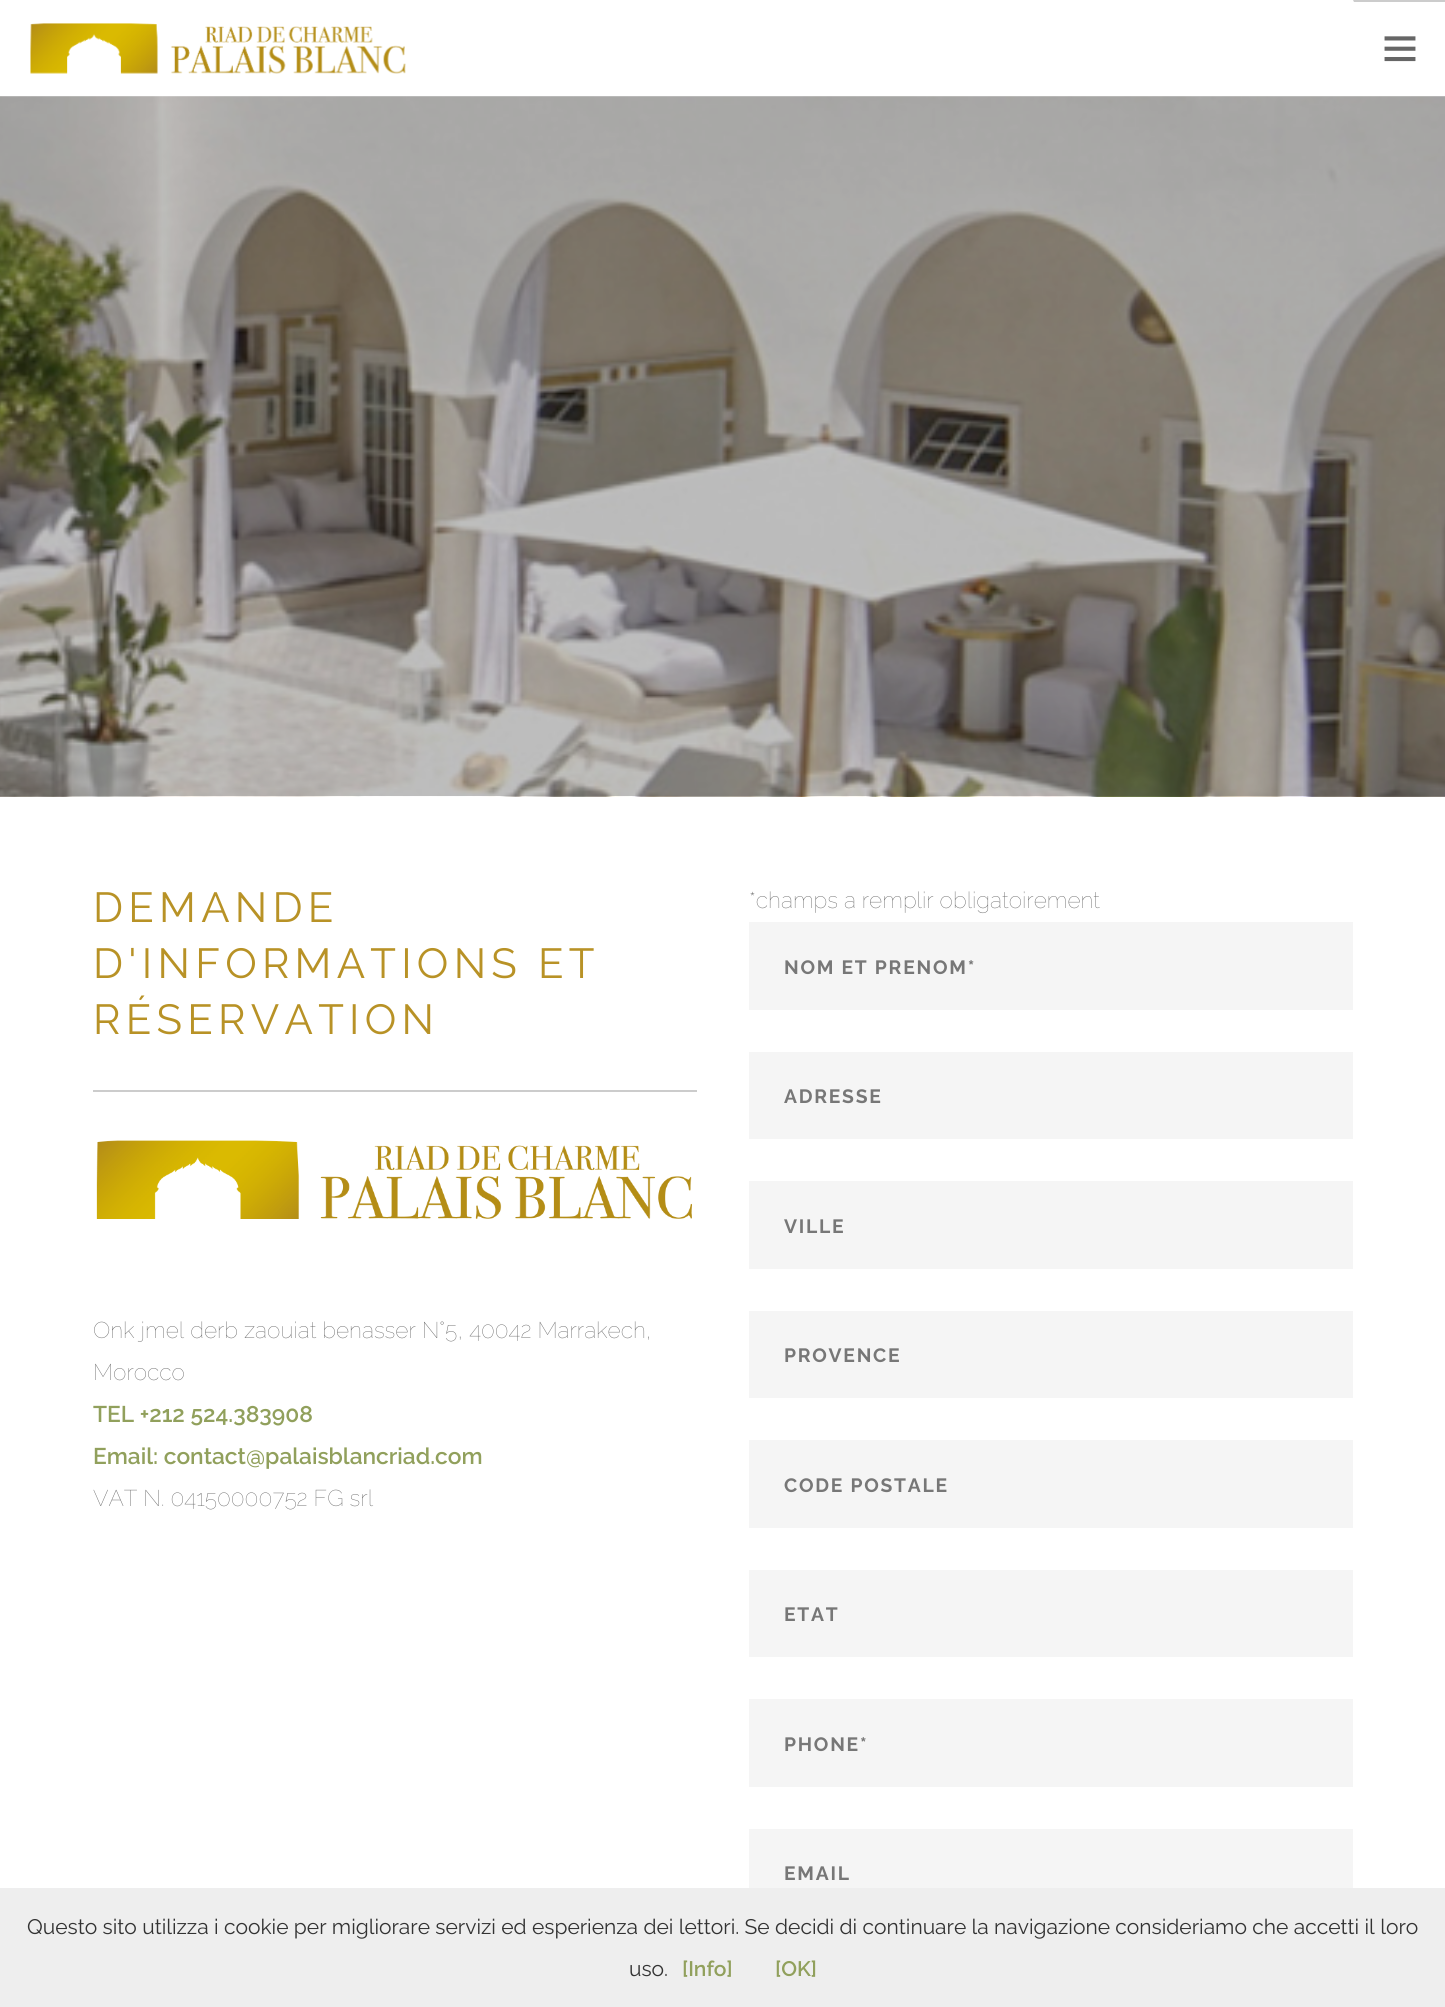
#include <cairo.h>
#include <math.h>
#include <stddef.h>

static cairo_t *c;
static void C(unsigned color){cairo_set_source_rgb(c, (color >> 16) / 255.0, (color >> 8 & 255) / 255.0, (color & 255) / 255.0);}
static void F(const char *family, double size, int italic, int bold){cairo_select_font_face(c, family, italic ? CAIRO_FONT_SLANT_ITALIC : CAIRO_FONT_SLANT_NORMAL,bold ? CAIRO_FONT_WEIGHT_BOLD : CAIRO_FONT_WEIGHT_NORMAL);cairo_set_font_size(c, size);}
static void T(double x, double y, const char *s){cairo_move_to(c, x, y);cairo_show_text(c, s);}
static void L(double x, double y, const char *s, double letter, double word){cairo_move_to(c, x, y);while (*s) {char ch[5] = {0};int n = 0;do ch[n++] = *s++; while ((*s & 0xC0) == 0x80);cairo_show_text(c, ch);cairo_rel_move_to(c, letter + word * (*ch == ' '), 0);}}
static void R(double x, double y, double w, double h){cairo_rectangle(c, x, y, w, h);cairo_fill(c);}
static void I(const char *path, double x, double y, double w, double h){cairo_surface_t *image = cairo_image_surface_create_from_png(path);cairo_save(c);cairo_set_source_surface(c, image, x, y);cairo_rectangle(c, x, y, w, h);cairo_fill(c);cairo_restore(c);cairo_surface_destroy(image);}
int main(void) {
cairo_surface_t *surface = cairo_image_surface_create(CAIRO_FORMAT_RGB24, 1445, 2007);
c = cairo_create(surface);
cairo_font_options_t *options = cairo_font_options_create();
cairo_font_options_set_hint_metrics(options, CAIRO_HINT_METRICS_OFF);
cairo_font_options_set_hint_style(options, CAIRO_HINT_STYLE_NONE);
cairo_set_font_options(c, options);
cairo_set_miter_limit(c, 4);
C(0xffffff);
cairo_paint(c);
I("3.png",0,96,1445,701);
cairo_set_source_rgba(c,1,1,1,0.2);
R(0,96,1445,1);
I("1.png",30,23,376,51);
C(0xcccccc);
cairo_new_path(c);
cairo_move_to(c,1353,0);
cairo_line_to(c,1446,0);
cairo_line_to(c,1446,2);
cairo_line_to(c,1354,2);
cairo_close_path(c);
cairo_fill(c);
I("2.png",1384,36,32,26);
F("Raleway",42,0,0);
C(0xb89226);
L(93,922,"DEMANDE",5.25,0);
L(93,978,"D'INFORMATIONS ET",5.25,0);
L(93,1034,"RÉSERVATION",5.25,0);
C(0xcccccc);
R(93,1090,604,2);
I("4.png",96,1140,596,79);
F("Raleway Thin",22.75,0,0);
C(0x666666);
T(93,1338,"Onk jmel derb zaouiat benasser N°5, 40042 Marrakech,");
T(93,1380,"Morocco");
F("Raleway SemiBold",22.75,0,0);
C(0x91a05c);
T(93,1422,"TEL +212 524.383908");
T(93,1464,"Email: contact@palaisblancriad.com");
F("Raleway Thin",22.75,0,0);
C(0x666666);
T(93,1506,"VAT N. 04150000752 FG srl");
T(749,908,"*champs a remplir obligatoirement");
C(0xf5f5f5);
R(749,922,604,88);
F("Raleway",19.25,0,1);
C(0x777777);
L(784,974,"NOM ET PRENOM*",1.75,0);
C(0xf5f5f5);
R(749,1052,604,87);
C(0x777777);
L(784,1103,"ADRESSE",1.75,0);
C(0xf5f5f5);
R(749,1181,604,88);
C(0x777777);
L(784,1233,"VILLE",1.75,0);
C(0xf5f5f5);
R(749,1311,604,87);
C(0x777777);
L(784,1362,"PROVENCE",1.75,0);
C(0xf5f5f5);
R(749,1440,604,88);
C(0x777777);
L(784,1492,"CODE POSTALE",1.75,0);
C(0xf5f5f5);
R(749,1570,604,87);
C(0x777777);
L(784,1621,"ETAT",1.75,0);
C(0xf5f5f5);
R(749,1699,604,88);
C(0x777777);
L(784,1751,"PHONE*",1.75,0);
C(0xf5f5f5);
R(749,1829,604,59);
C(0x777777);
L(784,1880,"EMAIL",1.75,0);
C(0xeeeeee);
R(0,1888,1445,119);
F("Raleway",21,0,0);
C(0x333333);
T(27,1934,"Questo sito utilizza i cookie per migliorare servizi ed esperienza dei lettori. Se decidi di continuare la navigazione consideriamo che accetti il loro");
T(629,1976,"uso.");
F("Raleway SemiBold",21,0,0);
C(0x91a05c);
T(682,1976,"[Info]");
T(775,1976,"[OK]");
cairo_surface_write_to_png(surface, "o.png");
cairo_font_options_destroy(options);
cairo_destroy(c);
cairo_surface_destroy(surface);
return 0;
}
